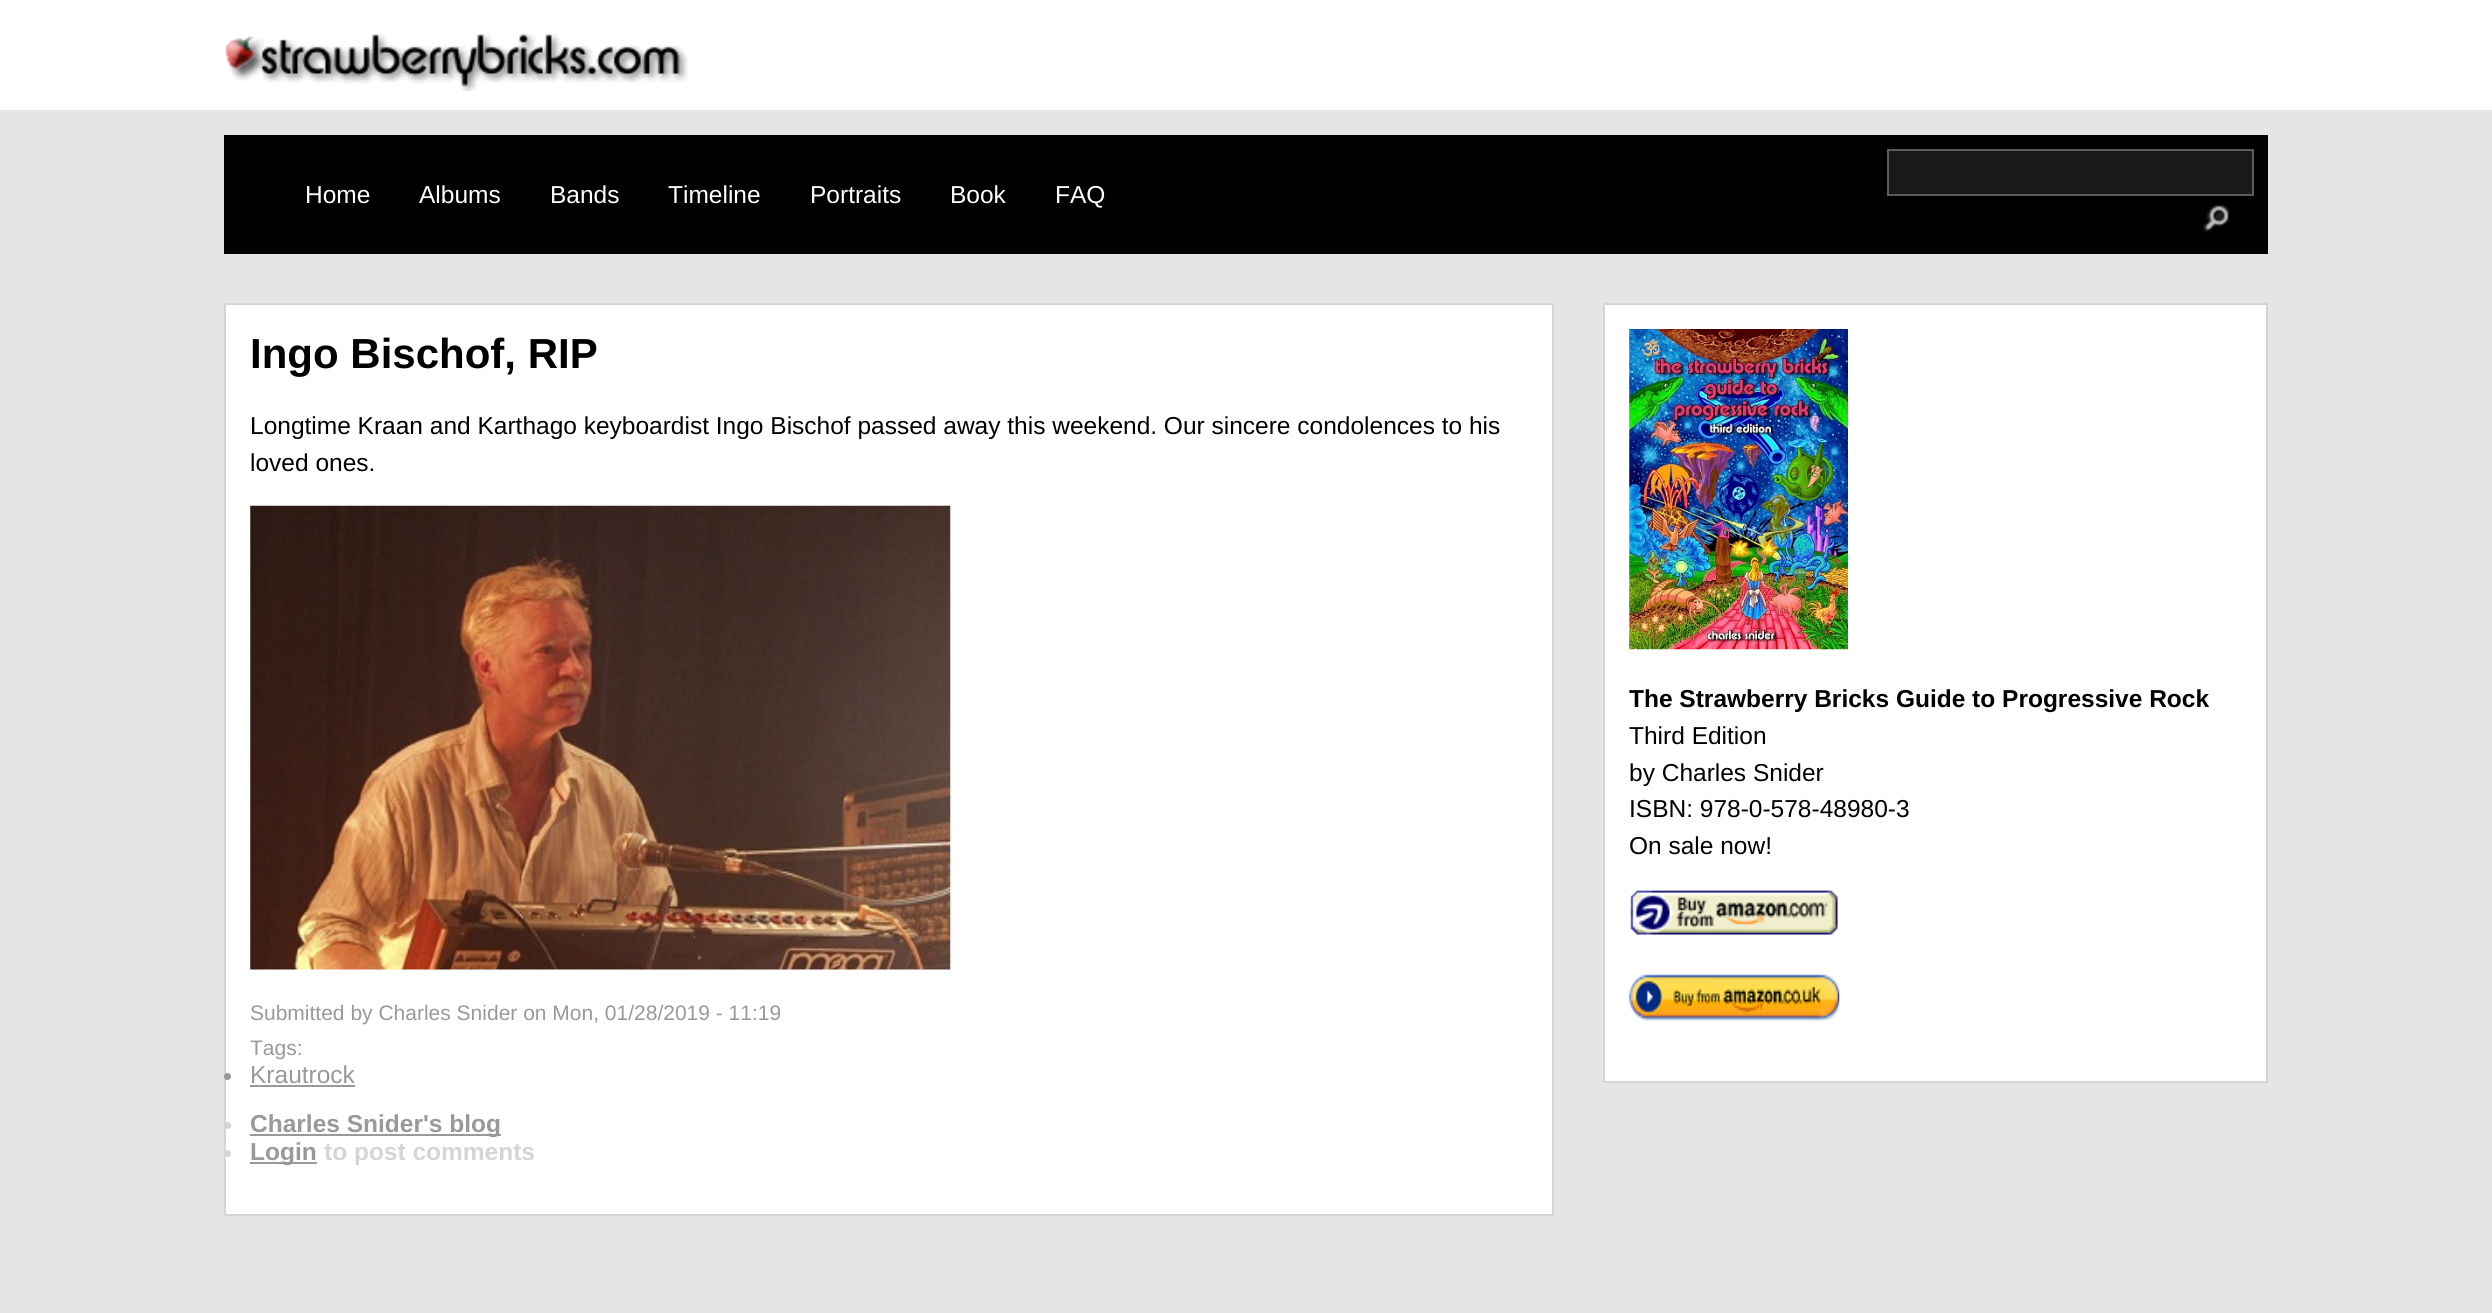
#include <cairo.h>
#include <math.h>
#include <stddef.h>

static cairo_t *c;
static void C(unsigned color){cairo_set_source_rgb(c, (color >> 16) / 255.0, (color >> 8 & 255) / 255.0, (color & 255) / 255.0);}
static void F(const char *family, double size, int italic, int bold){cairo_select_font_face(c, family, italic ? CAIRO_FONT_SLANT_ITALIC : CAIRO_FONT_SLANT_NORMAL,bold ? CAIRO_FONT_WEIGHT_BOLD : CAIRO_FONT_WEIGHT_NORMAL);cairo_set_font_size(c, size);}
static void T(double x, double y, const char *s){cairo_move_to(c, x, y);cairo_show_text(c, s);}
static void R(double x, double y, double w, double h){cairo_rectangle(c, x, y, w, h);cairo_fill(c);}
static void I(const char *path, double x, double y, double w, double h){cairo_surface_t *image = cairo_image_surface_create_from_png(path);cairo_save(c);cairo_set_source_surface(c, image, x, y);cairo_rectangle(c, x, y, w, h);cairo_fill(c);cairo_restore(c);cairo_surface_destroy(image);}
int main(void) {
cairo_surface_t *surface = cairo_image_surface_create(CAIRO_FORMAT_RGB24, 2492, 1313);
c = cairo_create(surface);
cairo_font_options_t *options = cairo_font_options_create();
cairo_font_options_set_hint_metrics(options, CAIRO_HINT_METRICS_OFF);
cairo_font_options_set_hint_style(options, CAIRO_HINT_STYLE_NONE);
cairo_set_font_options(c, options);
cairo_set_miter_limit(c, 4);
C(0xffffff);
cairo_paint(c);
I("1.png",225,33,463,58);
C(0xe5e5e4);
R(0,110,2492,1203);
C(0x000000);
R(224,135,2044,119);
F("Liberation Sans",24.5,0,0);
C(0xffffff);
T(305,203,"Home");
T(419,203,"Albums");
T(550,203,"Bands");
T(668,203,"Timeline");
T(810,203,"Portraits");
T(950,203,"Book");
T(1055,203,"FAQ");
C(0x1a1919);
cairo_rectangle(c,1888,150,365,45);
cairo_fill_preserve(c);
C(0x5c5b58);
cairo_stroke(c);
I("2.png",2203,204,27,29);
C(0xffffff);
cairo_rectangle(c,225,304,1328,911);
cairo_fill_preserve(c);
C(0xd5d5d4);
cairo_stroke(c);
F("Liberation Sans",42,0,1);
C(0x000000);
T(250,368,"Ingo Bischof, RIP");
F("Liberation Sans",24.5,0,0);
T(250,434,"Longtime Kraan and Karthago keyboardist Ingo Bischof passed away this weekend. Our sincere condolences to his");
T(250,471,"loved ones.");
I("3.png",250,505,701,465);
F("Liberation Sans",21,0,0);
C(0x999999);
T(250,1020,"Submitted by Charles Snider on Mon, 01/28/2019 - 11:19");
T(250,1055,"Tags:");
cairo_new_path(c);
cairo_arc(c,227.5,1076.5,3.5,0,2 * M_PI);
cairo_fill(c);
F("Liberation Sans",24.5,0,0);
T(250,1083,"Krautrock");
R(250,1085,105,2);
C(0xd5d5d4);
cairo_new_path(c);
cairo_arc(c,227.5,1125.5,3.5,0,2 * M_PI);
cairo_fill(c);
C(0x999999);
R(250,1134,251,2);
F("Liberation Sans",24.5,0,1);
T(250,1132,"Charles Snider's blog");
C(0xd5d5d4);
cairo_new_path(c);
cairo_arc(c,227.5,1153.5,3.5,0,2 * M_PI);
cairo_fill(c);
C(0x999999);
R(250,1162,67,2);
T(250,1160,"Login");
C(0xd5d5d4);
T(324,1160,"to post comments");
C(0xffffff);
cairo_rectangle(c,1604,304,663,778);
cairo_fill_preserve(c);
C(0xd5d5d4);
cairo_stroke(c);
I("4.png",1629,329,219,321);
C(0x000000);
T(1629,707,"The Strawberry Bricks Guide to Progressive Rock");
F("Liberation Sans",24.5,0,0);
T(1629,744,"Third Edition");
T(1629,781,"by Charles Snider");
T(1629,817,"ISBN: 978-0-578-48980-3");
T(1629,854,"On sale now!");
I("5.png",1630,890,208,45);
I("6.png",1629,974,211,47);
cairo_surface_write_to_png(surface, "o.png");
cairo_font_options_destroy(options);
cairo_destroy(c);
cairo_surface_destroy(surface);
return 0;
}
